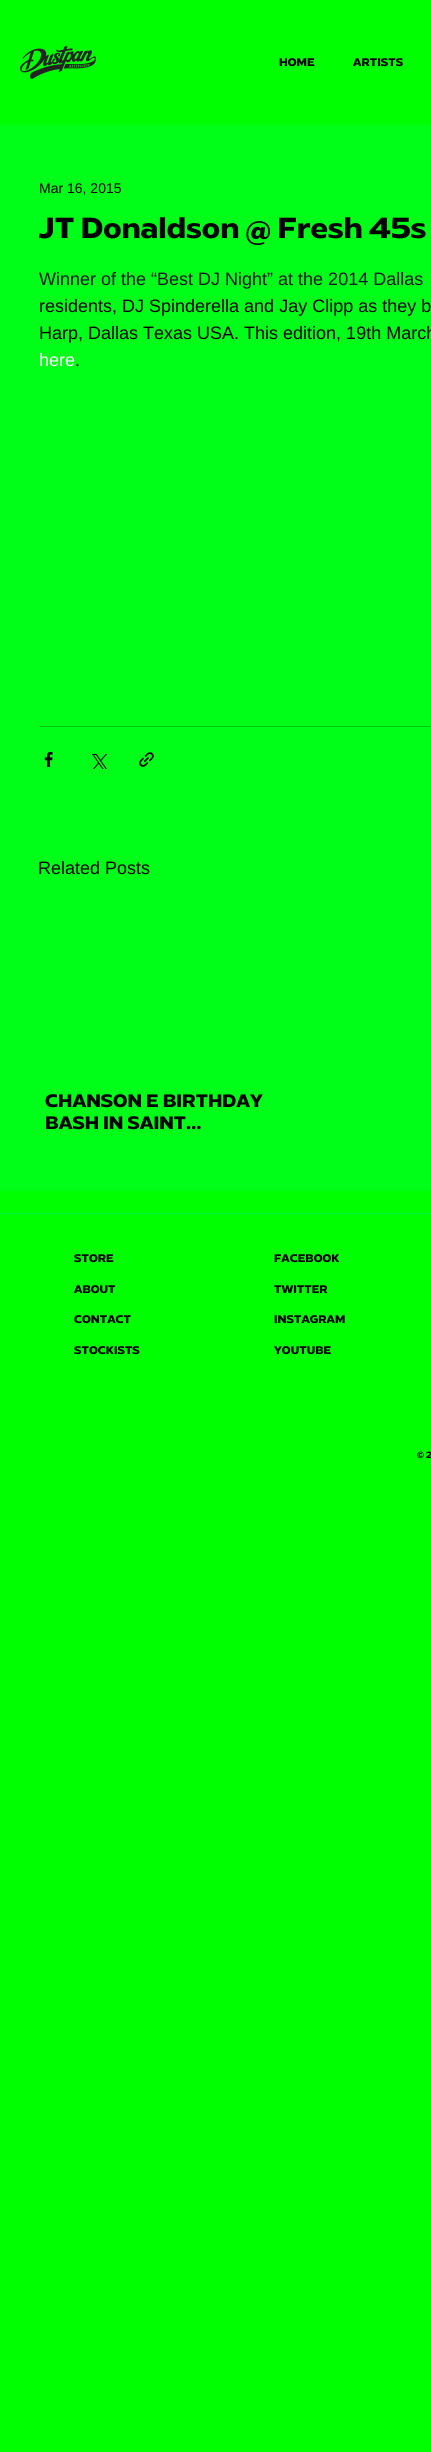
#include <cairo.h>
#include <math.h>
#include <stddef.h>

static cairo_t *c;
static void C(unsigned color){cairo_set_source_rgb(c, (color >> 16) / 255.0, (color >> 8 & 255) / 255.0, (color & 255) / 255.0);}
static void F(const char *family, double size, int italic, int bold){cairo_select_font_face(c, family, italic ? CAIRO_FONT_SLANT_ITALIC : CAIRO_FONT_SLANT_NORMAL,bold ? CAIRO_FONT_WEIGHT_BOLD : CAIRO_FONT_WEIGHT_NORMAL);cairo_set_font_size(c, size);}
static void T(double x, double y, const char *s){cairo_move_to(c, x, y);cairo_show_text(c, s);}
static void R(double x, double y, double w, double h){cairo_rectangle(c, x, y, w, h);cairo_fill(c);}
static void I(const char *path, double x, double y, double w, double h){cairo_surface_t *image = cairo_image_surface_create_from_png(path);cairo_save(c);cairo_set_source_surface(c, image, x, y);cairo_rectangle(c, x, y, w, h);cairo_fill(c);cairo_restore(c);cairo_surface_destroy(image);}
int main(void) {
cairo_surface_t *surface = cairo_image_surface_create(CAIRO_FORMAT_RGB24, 431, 2452);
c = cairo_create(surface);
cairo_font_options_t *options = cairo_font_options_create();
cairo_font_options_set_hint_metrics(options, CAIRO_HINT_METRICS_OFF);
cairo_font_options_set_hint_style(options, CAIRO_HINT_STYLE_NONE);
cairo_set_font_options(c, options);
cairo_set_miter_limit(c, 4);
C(0x00ff00);
cairo_paint(c);
I("1.png",20,46,76,33);
F("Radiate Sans",11,0,1);
C(0x000000);
T(279,66,"HOME");
T(353,66,"ARTISTS");
C(0x00ff18);
R(0,125,431,1066);
F("Liberation Sans",14,0,0);
C(0x000000);
T(39,193,"Mar 16, 2015");
F("Radiate Sans",29,0,1);
T(39,238,"JT Donaldson @ Fresh 45s");
F("Liberation Sans",18,0,0);
C(0x141823);
T(39,285,"Winner of the “Best DJ Night” at the 2014 Dallas");
C(0x000000);
T(39,312,"residents, DJ Spinderella and Jay Clipp as they b");
T(39,339,"Harp, Dallas Texas USA. This edition, 19th March");
C(0xffffff);
T(39,366,"here");
C(0x000000);
T(75,366,".");
C(0x00cc13);
R(39,726,392,1);
I("2.png",44,752,9,15);
I("3.png",92,754,15,15);
I("4.png",139,752,15,15);
C(0x000000);
T(38,874,"Related Posts");
F("Radiate Sans",18,0,1);
T(45,1107,"CHANSON E BIRTHDAY");
T(45,1129,"BASH IN SAINT…");
C(0x00f72e);
R(0,1213,431,1);
F("Radiate Sans",11,0,1);
C(0x000000);
T(74,1262,"STORE");
T(74,1293,"ABOUT");
T(74,1323,"CONTACT");
T(74,1354,"STOCKISTS");
T(274,1262,"FACEBOOK");
T(274,1293,"TWITTER");
T(274,1323,"INSTAGRAM");
T(274,1354,"YOUTUBE");
F("Radiate Sans",9,0,1);
T(417,1458,"© 2");
cairo_surface_write_to_png(surface, "o.png");
cairo_font_options_destroy(options);
cairo_destroy(c);
cairo_surface_destroy(surface);
return 0;
}
